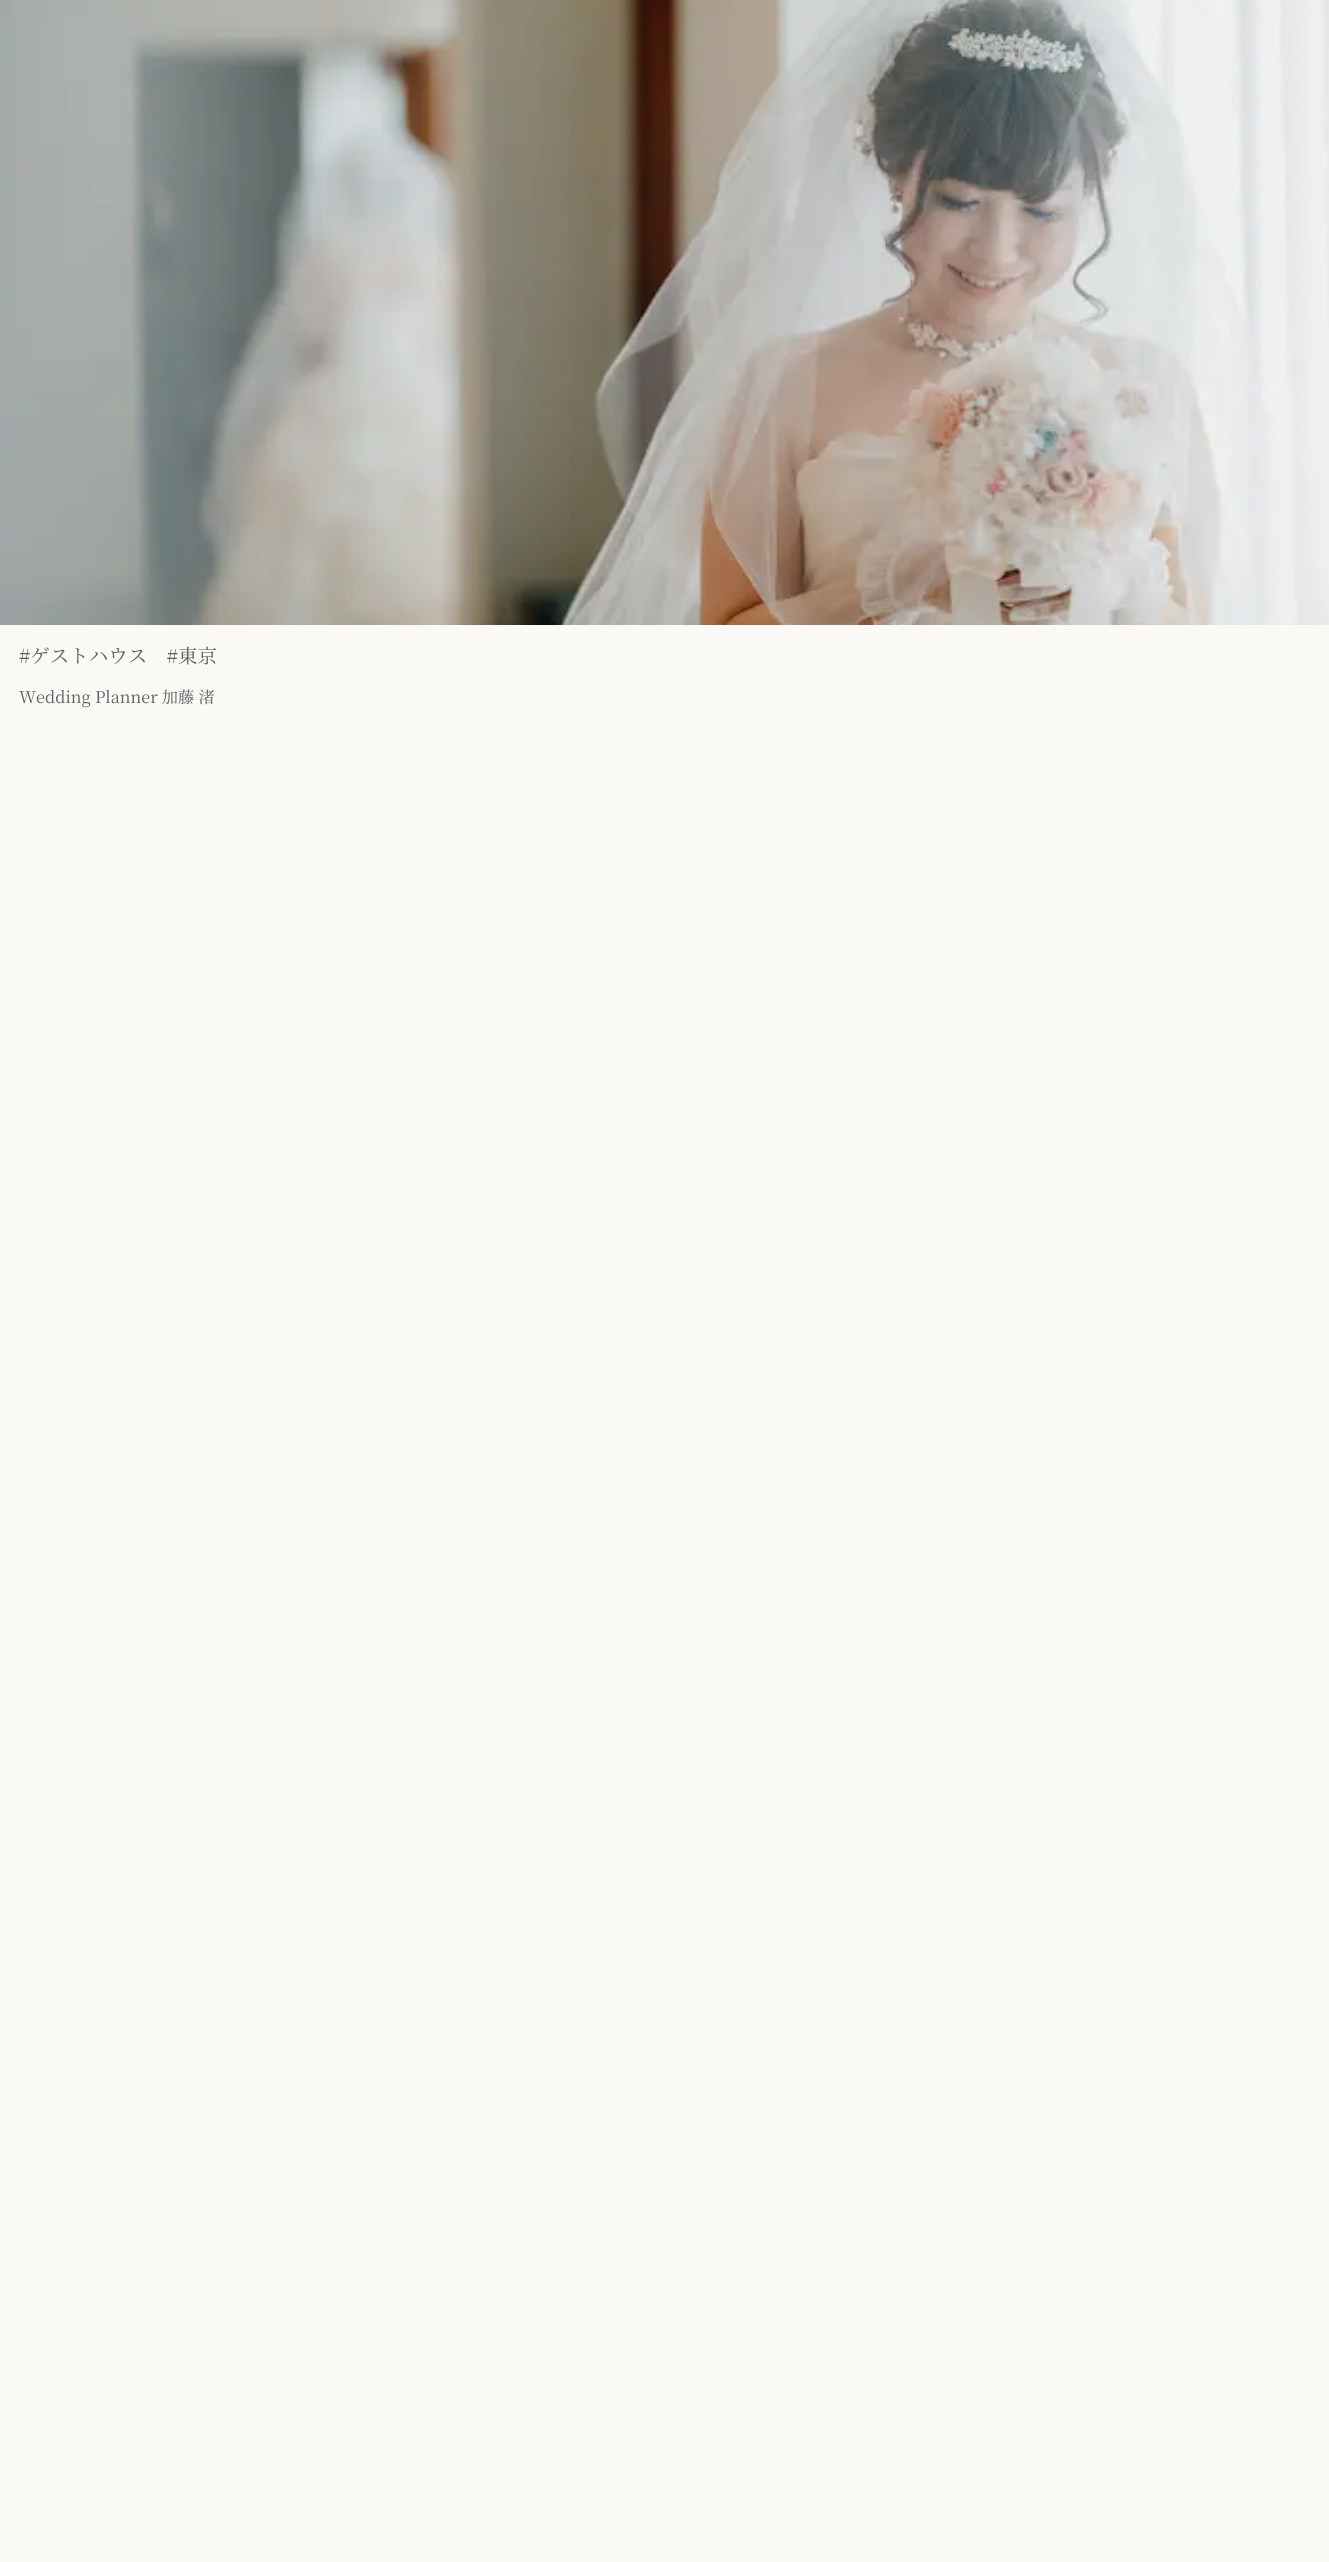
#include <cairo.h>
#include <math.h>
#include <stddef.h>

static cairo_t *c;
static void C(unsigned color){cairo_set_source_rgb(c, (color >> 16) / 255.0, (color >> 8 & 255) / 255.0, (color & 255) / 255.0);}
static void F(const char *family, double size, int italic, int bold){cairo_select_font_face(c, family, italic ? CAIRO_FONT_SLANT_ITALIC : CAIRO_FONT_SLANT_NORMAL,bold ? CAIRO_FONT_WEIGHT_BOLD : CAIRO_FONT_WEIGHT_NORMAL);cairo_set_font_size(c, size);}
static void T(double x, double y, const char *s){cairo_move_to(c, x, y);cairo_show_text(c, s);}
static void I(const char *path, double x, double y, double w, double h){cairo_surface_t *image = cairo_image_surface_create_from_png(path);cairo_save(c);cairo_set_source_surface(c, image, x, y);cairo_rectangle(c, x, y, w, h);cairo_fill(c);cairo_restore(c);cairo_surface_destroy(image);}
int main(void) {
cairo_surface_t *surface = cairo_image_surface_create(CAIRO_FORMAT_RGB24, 1329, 2562);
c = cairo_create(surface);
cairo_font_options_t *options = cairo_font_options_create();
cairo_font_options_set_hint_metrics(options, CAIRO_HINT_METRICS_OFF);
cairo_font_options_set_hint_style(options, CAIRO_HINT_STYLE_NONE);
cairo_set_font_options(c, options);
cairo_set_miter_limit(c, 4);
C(0xfbf9f5);
cairo_paint(c);
I("1.png",0,0,1329,625);
F("Noto Serif JP",19.5,0,0);
C(0x5d5d5d);
T(19,663,"#ゲストハウス　#東京");
F("Noto Serif JP",16.25,0,0);
T(19,703,"Wedding Planner 加藤 渚");
cairo_surface_write_to_png(surface, "o.png");
cairo_font_options_destroy(options);
cairo_destroy(c);
cairo_surface_destroy(surface);
return 0;
}
